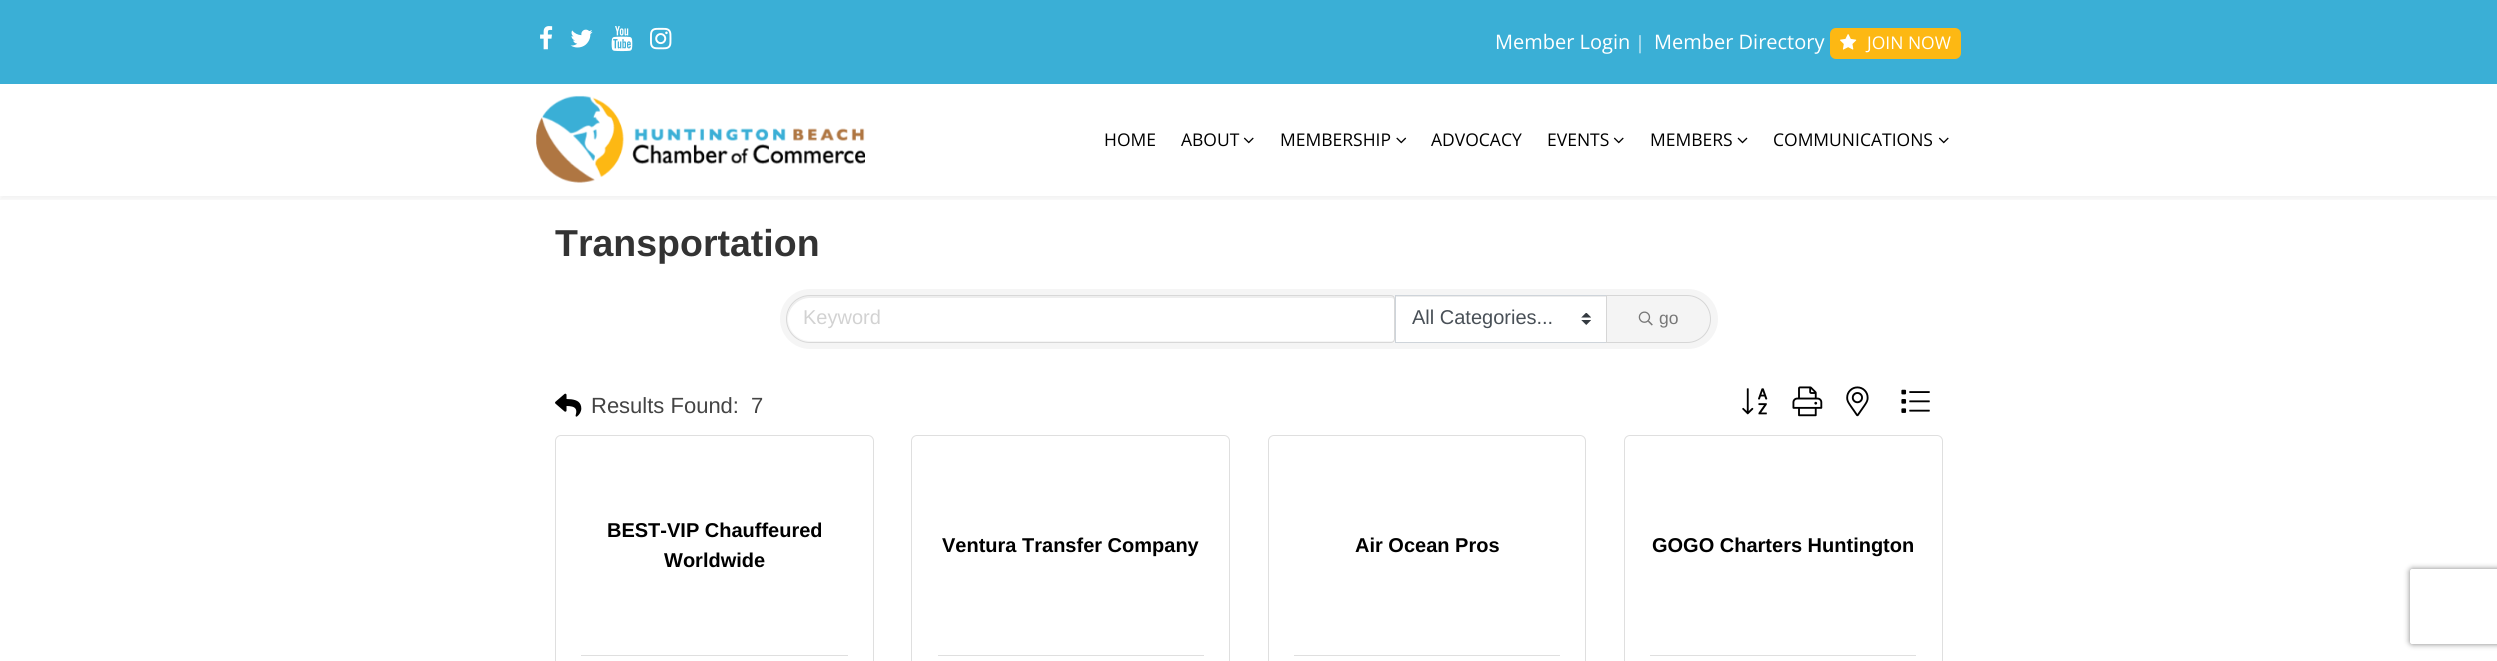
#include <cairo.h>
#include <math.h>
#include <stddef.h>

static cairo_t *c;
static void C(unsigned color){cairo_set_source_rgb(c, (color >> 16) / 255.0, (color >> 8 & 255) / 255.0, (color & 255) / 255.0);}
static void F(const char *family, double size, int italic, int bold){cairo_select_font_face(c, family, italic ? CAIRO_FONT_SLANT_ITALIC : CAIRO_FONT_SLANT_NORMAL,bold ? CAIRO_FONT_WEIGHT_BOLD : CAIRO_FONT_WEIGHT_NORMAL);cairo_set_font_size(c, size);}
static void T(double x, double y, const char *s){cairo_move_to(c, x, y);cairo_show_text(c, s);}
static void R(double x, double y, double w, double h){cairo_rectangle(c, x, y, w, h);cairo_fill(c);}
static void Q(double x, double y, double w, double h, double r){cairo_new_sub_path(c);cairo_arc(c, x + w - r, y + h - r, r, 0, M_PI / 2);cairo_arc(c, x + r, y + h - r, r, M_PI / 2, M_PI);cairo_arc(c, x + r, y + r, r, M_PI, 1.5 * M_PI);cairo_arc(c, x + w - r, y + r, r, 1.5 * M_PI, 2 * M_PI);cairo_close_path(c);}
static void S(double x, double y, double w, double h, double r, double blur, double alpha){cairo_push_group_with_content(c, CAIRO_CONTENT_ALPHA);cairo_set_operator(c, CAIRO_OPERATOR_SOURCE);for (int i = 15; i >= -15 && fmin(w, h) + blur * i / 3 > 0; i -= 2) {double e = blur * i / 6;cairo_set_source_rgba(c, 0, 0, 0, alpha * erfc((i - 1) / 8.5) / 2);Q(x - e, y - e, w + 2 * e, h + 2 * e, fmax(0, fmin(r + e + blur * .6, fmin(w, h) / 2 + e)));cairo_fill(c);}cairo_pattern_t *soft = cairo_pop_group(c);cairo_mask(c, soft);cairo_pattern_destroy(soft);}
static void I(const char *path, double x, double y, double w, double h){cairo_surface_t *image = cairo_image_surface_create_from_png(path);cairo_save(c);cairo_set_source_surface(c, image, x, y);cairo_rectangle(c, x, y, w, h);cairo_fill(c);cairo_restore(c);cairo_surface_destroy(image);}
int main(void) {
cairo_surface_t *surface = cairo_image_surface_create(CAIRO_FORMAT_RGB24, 2497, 661);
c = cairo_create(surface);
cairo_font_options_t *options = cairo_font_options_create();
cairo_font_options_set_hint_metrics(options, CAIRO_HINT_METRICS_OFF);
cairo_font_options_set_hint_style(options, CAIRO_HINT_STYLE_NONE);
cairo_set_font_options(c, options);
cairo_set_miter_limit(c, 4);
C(0xffffff);
cairo_paint(c);
C(0x3aafd6);
R(0,0,2497,84);
I("1.png",540,26,13,24);
I("2.png",570,29,23,19);
I("3.png",611,26,22,26);
I("4.png",650,27,22,23);
F("Open Sans",20,0,0);
C(0xffffff);
T(1495,49,"Member Login");
F("Liberation Serif",20,0,0);
T(1638,49,"|");
F("Open Sans",20,0,0);
T(1654,49,"Member Directory");
C(0xfdb813);
Q(1830,28,131,31,6);
cairo_fill(c);
I("5.png",1840,34,17,16);
F("Open Sans",17.5,0,0);
C(0xffffff);
T(1867,49,"JOIN NOW");
cairo_save(c);
cairo_rectangle(c,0,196,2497,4);
cairo_clip(c);
C(0x000000);
S(0,88,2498,112,0,2,.05);
cairo_restore(c);
I("6.png",536,95,329,88);
C(0x000000);
T(1104,146,"HOME");
T(1181,146,"ABOUT");
I("7.png",1243,137,11,7);
T(1280,146,"MEMBERSHIP");
I("8.png",1396,137,11,7);
T(1431,146,"ADVOCACY");
T(1547,146,"EVENTS");
I("7.png",1613,137,11,7);
T(1650,146,"MEMBERS");
I("9.png",1737,137,11,7);
T(1773,146,"COMMUNICATIONS");
I("7.png",1938,137,11,7);
F("Liberation Sans",37.5,0,1);
C(0x333333);
T(555,256,"Transportation");
C(0xf5f5f5);
Q(780,289,938,60,30);
cairo_fill(c);
C(0xffffff);
cairo_new_path(c);
cairo_move_to(c,810.5,296);
cairo_line_to(c,1391.5,296);
cairo_curve_to(c,1393,296,1394,297,1394,298.5);
cairo_line_to(c,1394,338.5);
cairo_curve_to(c,1394,340,1393,341,1391.5,341);
cairo_line_to(c,810.5,341);
cairo_curve_to(c,798,341,788,331,788,318.5);
cairo_curve_to(c,788,306,798,296,810.5,296);
cairo_close_path(c);
cairo_fill(c);
cairo_set_source_rgba(c,0,0,0,0.07);
cairo_new_path(c);
cairo_move_to(c,810,298);
cairo_line_to(c,1391,298);
cairo_curve_to(c,1393,298,1394,299,1394,300);
cairo_line_to(c,1394,298);
cairo_curve_to(c,1394,297,1393,296,1392,296);
cairo_line_to(c,810,296);
cairo_curve_to(c,798,296,788,306,788,318);
cairo_line_to(c,788,319);
cairo_curve_to(c,788,308,798,298,810,298);
cairo_close_path(c);
cairo_fill(c);
cairo_new_path(c);
cairo_move_to(c,810,295.5);
cairo_line_to(c,1391,295.5);
cairo_curve_to(c,1393,295.5,1394.5,297,1394.5,299);
cairo_line_to(c,1394.5,339);
cairo_curve_to(c,1394.5,341,1393,342.5,1391,342.5);
cairo_line_to(c,810,342.5);
cairo_curve_to(c,797,342.5,786.5,332,786.5,319);
cairo_curve_to(c,786.5,306,797,295.5,810,295.5);
cairo_close_path(c);
cairo_set_source_rgba(c,0,0,0,0.12);
cairo_set_line_width(c,1);
cairo_stroke(c);
F("Liberation Sans",20,0,0);
C(0xd2d2d2);
T(803,324,"Keyword");
C(0xffffff);
R(1396,297,210,45);
I("10.png",1581,313,10,12);
C(0xececec);
R(1396,296,210,1);
cairo_rectangle(c,1395.5,295.5,212,47);
C(0xced4da);
cairo_stroke(c);
C(0x495057);
T(1412,324,"All Categories...");
C(0xf4f4f4);
cairo_new_path(c);
cairo_move_to(c,1606.5,295.5);
cairo_line_to(c,1687,295.5);
cairo_curve_to(c,1700,295.5,1710.5,306,1710.5,319);
cairo_curve_to(c,1710.5,332,1700,342.5,1687,342.5);
cairo_line_to(c,1606.5,342.5);
cairo_close_path(c);
cairo_fill_preserve(c);
C(0xd6d6d6);
cairo_stroke(c);
I("11.png",1638,311,15,15);
F("Liberation Sans",17.5,0,0);
C(0x777777);
T(1659,324,"go");
I("12.png",555,393,27,24);
F("Liberation Sans",22,0,0);
C(0x444444);
T(591,413,"Results Found:");
T(751,413,"7");
I("13.png",1742,388,26,27);
I("14.png",1792,386,31,31);
I("15.png",1846,386,23,31);
I("16.png",1901,389,29,24);
Q(555.5,435.5,318,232,5.5);
C(0xdfdfdf);
cairo_stroke(c);
F("Liberation Sans",20,0,1);
C(0x000000);
T(607,537,"BEST-VIP Chauffeured");
T(664,567,"Worldwide");
C(0xdfdfdf);
R(581,655,267,1);
Q(911.5,435.5,318,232,5.5);
cairo_stroke(c);
C(0x000000);
T(942,552,"Ventura Transfer Company");
C(0xdfdfdf);
R(938,655,266,1);
Q(1268.5,435.5,317,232,5.5);
cairo_stroke(c);
C(0x000000);
T(1355,552,"Air Ocean Pros");
C(0xdfdfdf);
R(1294,655,266,1);
Q(1624.5,435.5,318,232,5.5);
cairo_stroke(c);
C(0x000000);
T(1652,552,"GOGO Charters Huntington");
C(0xdfdfdf);
R(1650,655,266,1);
cairo_save(c);
cairo_set_fill_rule(c,CAIRO_FILL_RULE_EVEN_ODD);
cairo_new_path(c);
cairo_move_to(c,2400,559);
cairo_line_to(c,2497,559);
cairo_line_to(c,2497,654);
cairo_line_to(c,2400,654);
cairo_close_path(c);
cairo_move_to(c,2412.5,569);
cairo_line_to(c,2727.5,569);
cairo_curve_to(c,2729,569,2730,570,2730,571.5);
cairo_line_to(c,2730,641.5);
cairo_curve_to(c,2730,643,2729,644,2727.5,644);
cairo_line_to(c,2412.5,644);
cairo_curve_to(c,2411,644,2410,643,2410,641.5);
cairo_line_to(c,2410,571.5);
cairo_curve_to(c,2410,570,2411,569,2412.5,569);
cairo_close_path(c);
cairo_clip(c);
C(0x808080);
S(2410,569,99,75,2.5,3,1);
cairo_restore(c);
cairo_surface_write_to_png(surface, "o.png");
cairo_font_options_destroy(options);
cairo_destroy(c);
cairo_surface_destroy(surface);
return 0;
}
